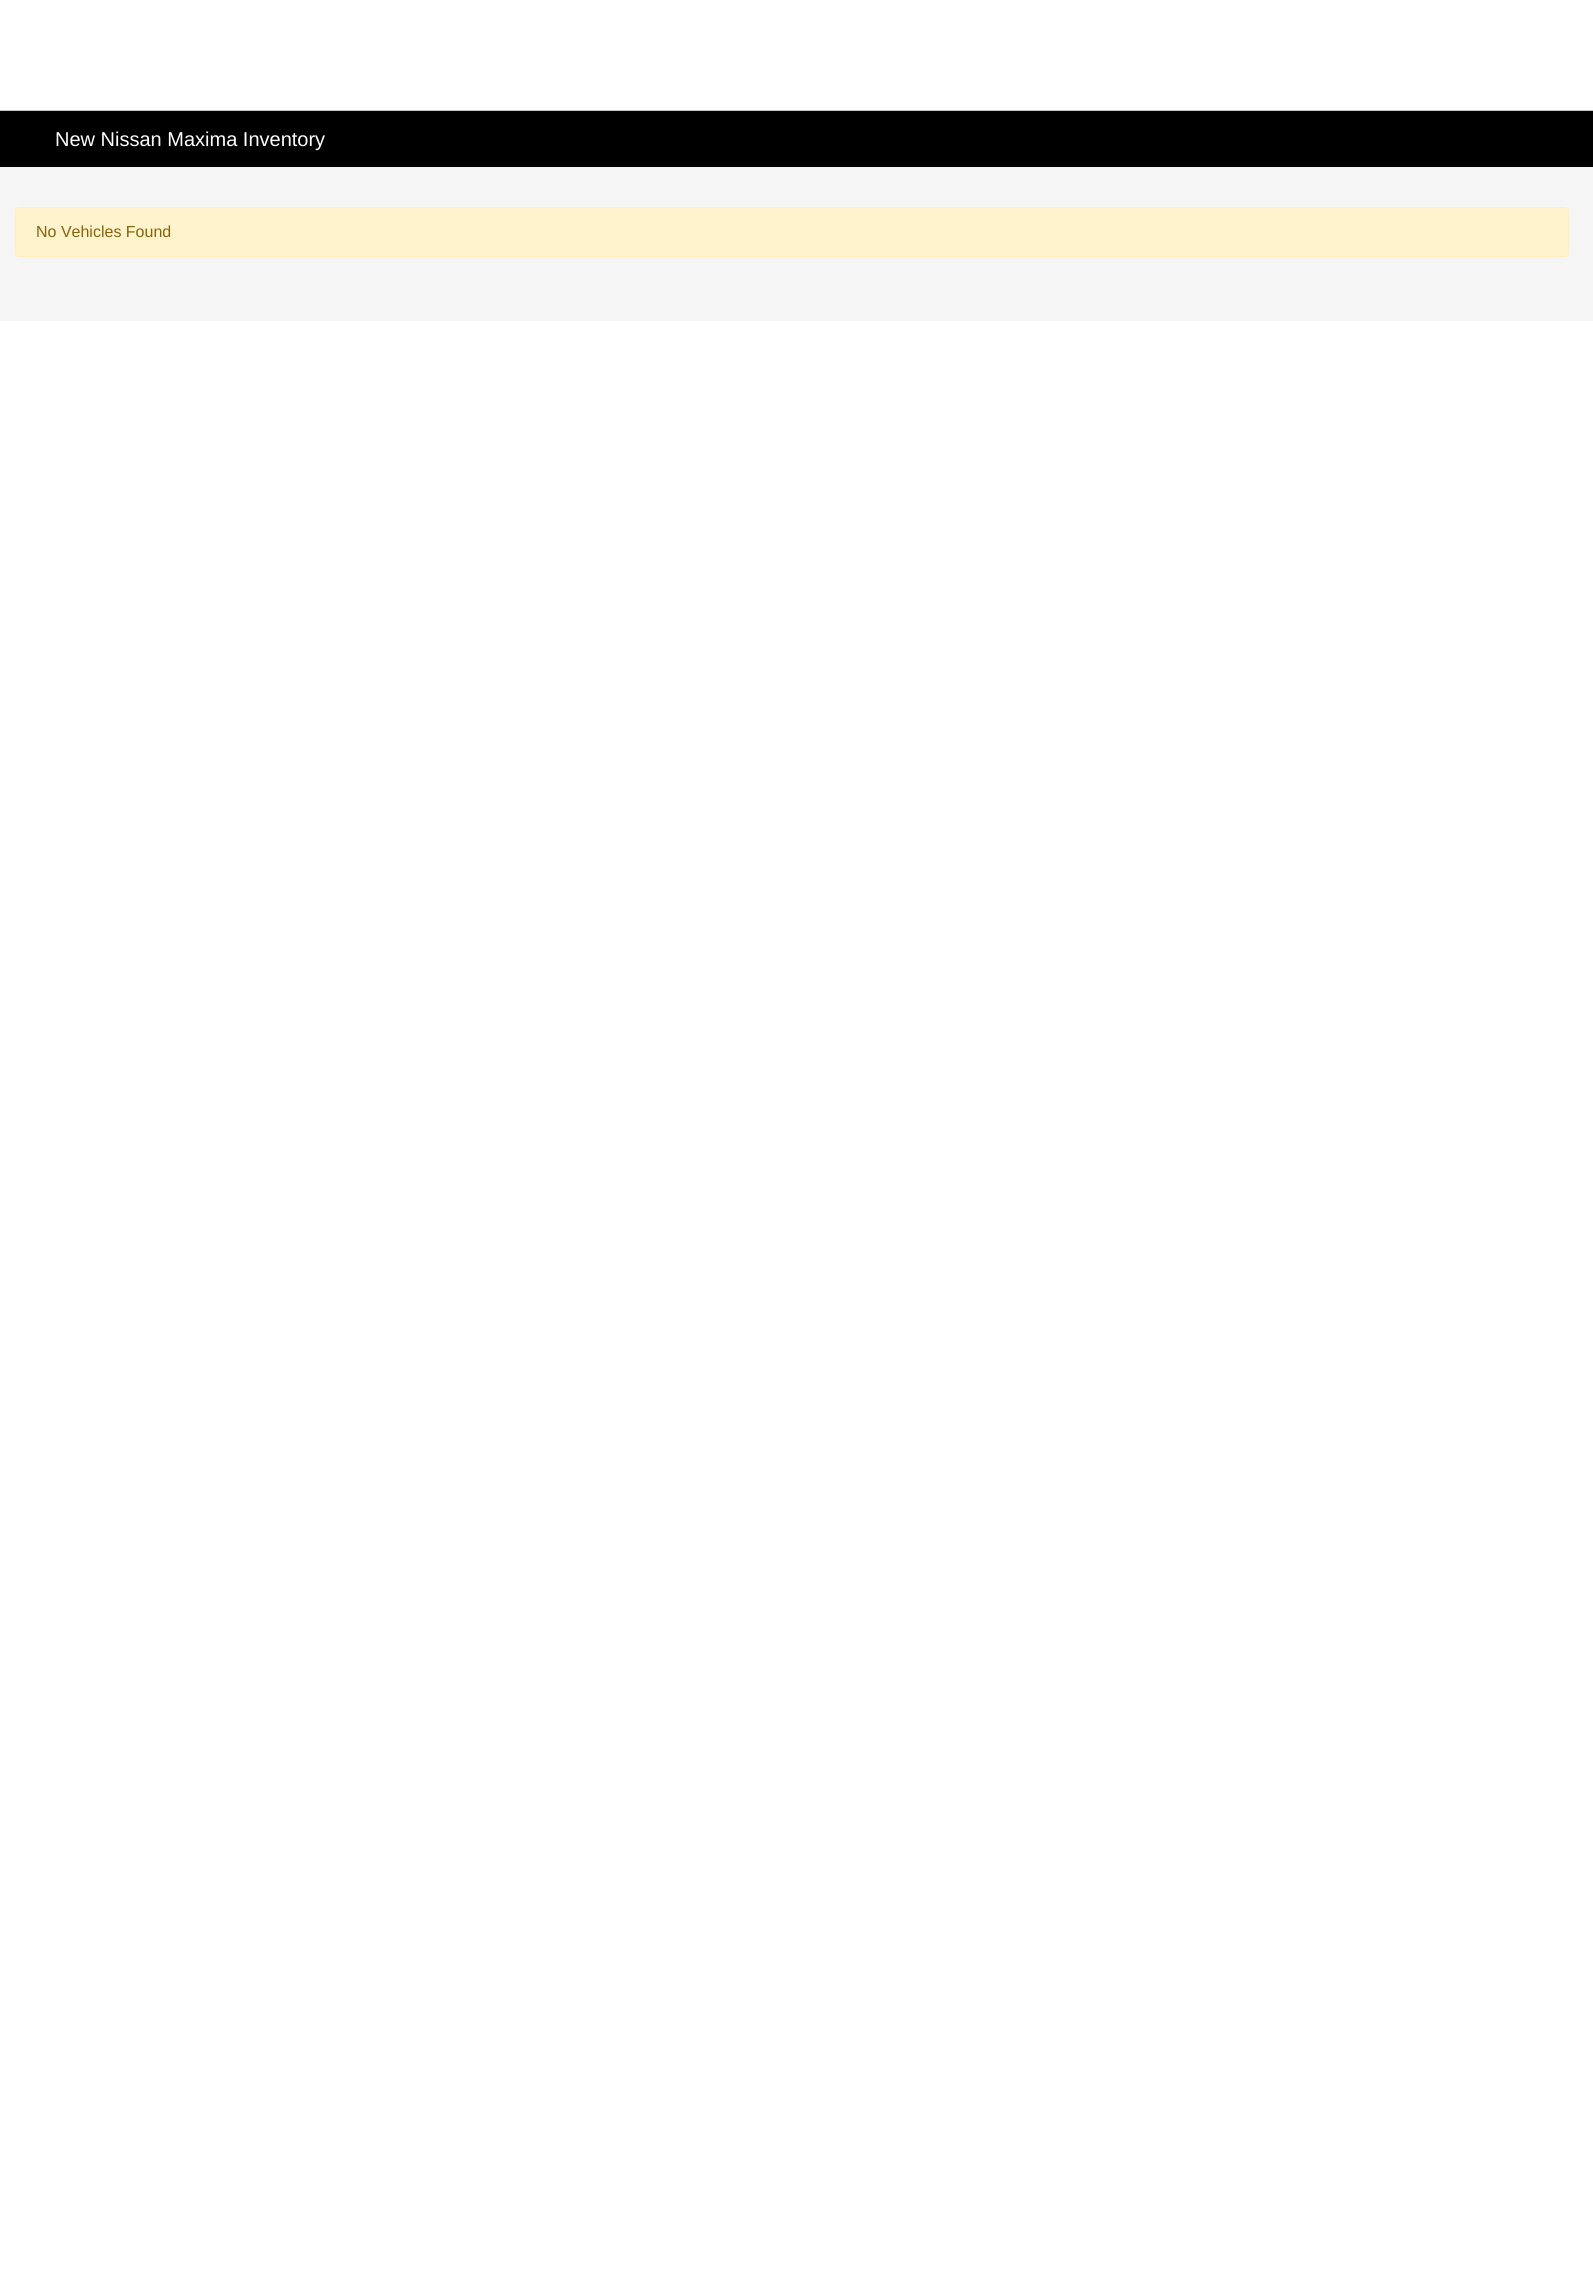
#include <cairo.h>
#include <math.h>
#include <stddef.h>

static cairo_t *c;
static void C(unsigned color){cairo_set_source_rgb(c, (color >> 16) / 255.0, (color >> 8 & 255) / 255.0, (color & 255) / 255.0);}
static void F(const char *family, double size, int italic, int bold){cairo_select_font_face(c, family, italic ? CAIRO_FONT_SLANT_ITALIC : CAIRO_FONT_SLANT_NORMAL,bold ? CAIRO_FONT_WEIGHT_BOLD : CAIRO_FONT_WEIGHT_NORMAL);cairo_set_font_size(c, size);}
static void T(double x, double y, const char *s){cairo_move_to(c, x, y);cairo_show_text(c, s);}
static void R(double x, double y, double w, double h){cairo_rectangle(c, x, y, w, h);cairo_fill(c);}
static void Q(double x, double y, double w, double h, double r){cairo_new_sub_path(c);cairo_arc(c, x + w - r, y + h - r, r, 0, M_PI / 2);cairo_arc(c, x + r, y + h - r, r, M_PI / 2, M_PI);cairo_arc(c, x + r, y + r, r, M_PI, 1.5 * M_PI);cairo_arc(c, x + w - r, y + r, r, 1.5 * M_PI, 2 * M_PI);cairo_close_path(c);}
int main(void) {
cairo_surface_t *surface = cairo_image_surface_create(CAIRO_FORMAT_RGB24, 1593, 2286);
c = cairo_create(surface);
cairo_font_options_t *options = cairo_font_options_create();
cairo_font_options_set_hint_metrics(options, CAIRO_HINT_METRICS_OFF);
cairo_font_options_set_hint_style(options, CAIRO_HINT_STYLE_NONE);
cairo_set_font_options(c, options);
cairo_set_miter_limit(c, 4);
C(0xffffff);
cairo_paint(c);
C(0xf5f5f5);
R(0,167,1593,154);
C(0x000000);
R(0,111,1593,56);
C(0xc6c6c6);
R(0,110,1593,1);
F("Liberation Sans",20,0,0);
C(0xffffff);
T(55,146,"New Nissan Maxima Inventory");
C(0xfff3cd);
Q(15.5,207.5,1553,49,3.5);
cairo_fill_preserve(c);
C(0xffeeba);
cairo_set_line_width(c,1);
cairo_stroke(c);
F("Liberation Sans",16,0,0);
C(0x856404);
T(36,237,"No Vehicles Found");
cairo_surface_write_to_png(surface, "o.png");
cairo_font_options_destroy(options);
cairo_destroy(c);
cairo_surface_destroy(surface);
return 0;
}
